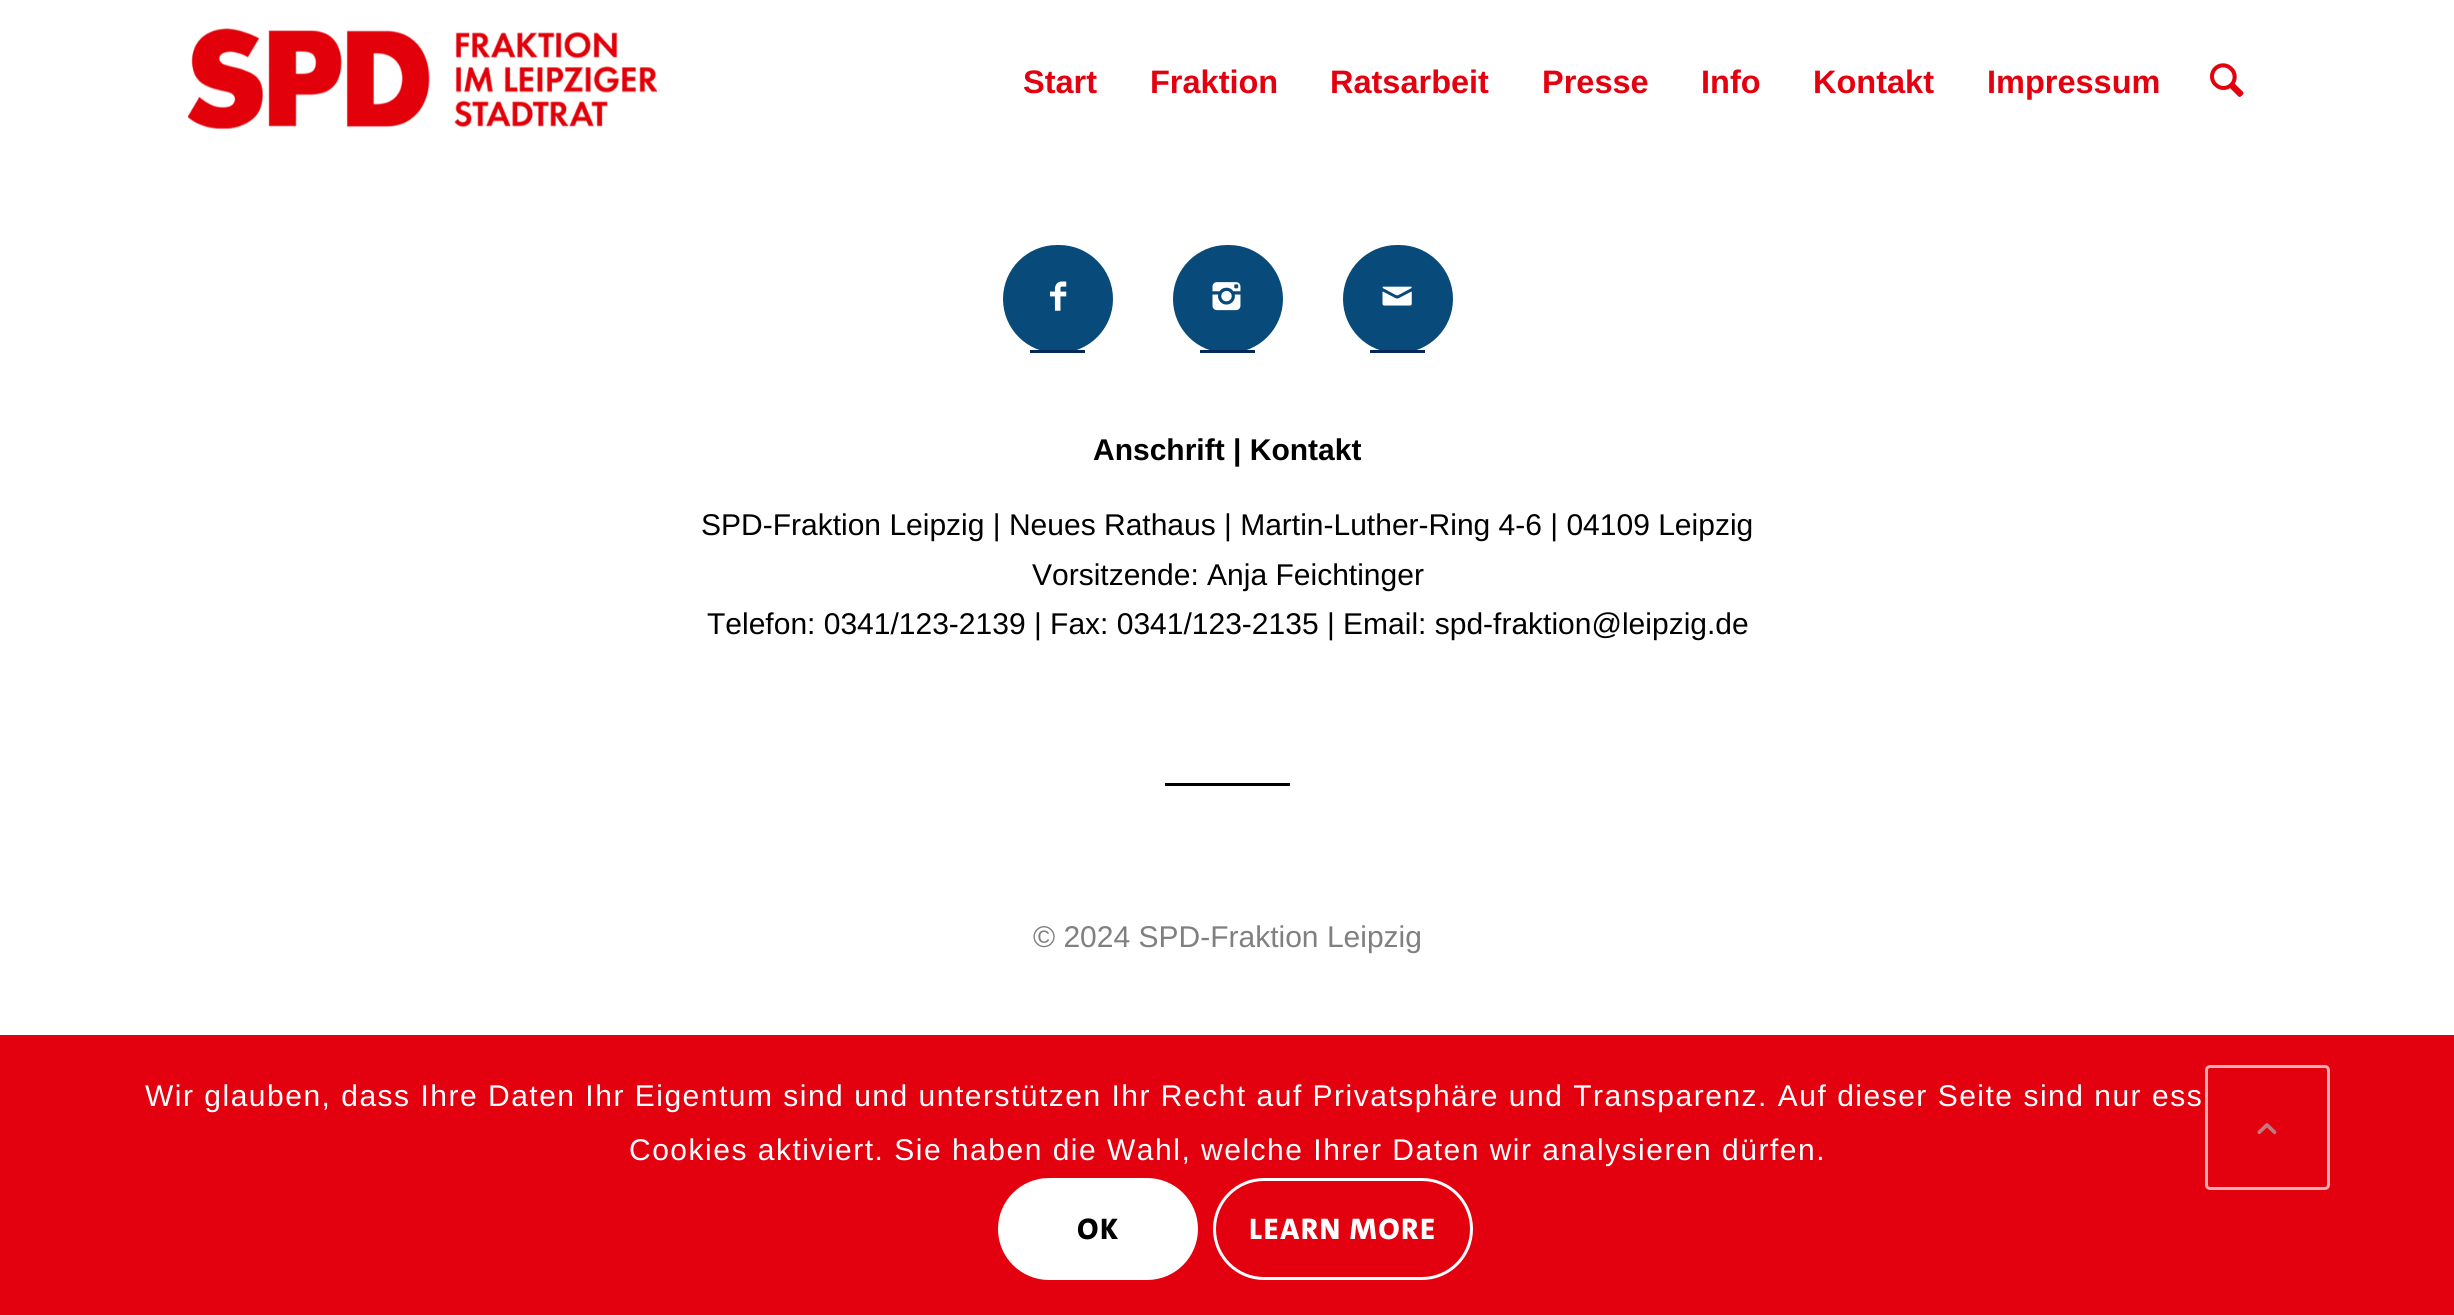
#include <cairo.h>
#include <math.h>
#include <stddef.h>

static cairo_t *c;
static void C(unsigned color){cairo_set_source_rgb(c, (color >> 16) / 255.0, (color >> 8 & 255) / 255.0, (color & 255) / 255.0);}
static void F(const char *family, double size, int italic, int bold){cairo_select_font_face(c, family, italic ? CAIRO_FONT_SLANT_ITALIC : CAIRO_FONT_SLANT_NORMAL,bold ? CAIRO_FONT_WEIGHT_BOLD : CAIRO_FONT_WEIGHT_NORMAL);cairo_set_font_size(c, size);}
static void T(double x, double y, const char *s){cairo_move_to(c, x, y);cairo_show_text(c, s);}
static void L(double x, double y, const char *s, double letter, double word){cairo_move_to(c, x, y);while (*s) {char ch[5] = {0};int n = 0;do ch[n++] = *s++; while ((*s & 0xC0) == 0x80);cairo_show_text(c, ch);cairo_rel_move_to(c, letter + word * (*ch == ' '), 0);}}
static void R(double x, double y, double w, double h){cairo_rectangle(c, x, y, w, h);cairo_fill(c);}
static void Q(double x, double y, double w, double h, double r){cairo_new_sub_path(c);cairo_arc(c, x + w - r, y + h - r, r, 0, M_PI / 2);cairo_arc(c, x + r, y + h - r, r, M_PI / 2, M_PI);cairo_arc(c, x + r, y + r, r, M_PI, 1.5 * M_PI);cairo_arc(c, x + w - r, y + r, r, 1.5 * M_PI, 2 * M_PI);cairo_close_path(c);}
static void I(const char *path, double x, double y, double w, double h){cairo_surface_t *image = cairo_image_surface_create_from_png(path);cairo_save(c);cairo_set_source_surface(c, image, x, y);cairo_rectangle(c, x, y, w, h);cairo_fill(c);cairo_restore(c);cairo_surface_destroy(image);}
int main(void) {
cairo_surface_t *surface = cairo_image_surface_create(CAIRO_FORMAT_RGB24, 2454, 1315);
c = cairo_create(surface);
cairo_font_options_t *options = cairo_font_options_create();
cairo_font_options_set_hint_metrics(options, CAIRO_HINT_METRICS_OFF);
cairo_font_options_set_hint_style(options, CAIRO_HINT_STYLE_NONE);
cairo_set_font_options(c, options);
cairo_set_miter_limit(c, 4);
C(0xffffff);
cairo_paint(c);
I("1.png",188,28,470,101);
F("Liberation Sans",32.5,0,1);
C(0xe3000f);
T(1023,93,"Start");
T(1150,93,"Fraktion");
T(1330,93,"Ratsarbeit");
T(1542,93,"Presse");
T(1701,93,"Info");
T(1813,93,"Kontakt");
T(1987,93,"Impressum");
I("2.png",2210,63,34,34);
C(0x084a79);
Q(1003,245,110,108,54);
cairo_fill(c);
C(0x062857);
R(1030,350,55,3);
I("3.png",1050,281,17,30);
C(0x084a79);
Q(1173,245,110,108,54);
cairo_fill(c);
C(0x062857);
R(1200,350,55,3);
I("4.png",1212,282,29,29);
C(0x084a79);
Q(1343,245,110,108,54);
cairo_fill(c);
C(0x062857);
R(1370,350,55,3);
I("5.png",1382,286,30,20);
F("Liberation Sans",30,0,1);
C(0x000000);
T(1093,460,"Anschrift | Kontakt");
F("Liberation Sans",30,0,0);
T(701,535,"SPD-Fraktion Leipzig | Neues Rathaus | Martin-Luther-Ring 4-6 | 04109 Leipzig");
T(1032,585,"Vorsitzende: Anja Feichtinger");
T(707,634,"Telefon: 0341/123-2139 | Fax: 0341/123-2135 | Email: spd-fraktion@leipzig.de");
R(1165,783,125,3);
C(0x808080);
T(1033,947,"© 2024 SPD-Fraktion Leipzig");
C(0xe3000f);
R(0,1035,2454,280);
C(0xffffff);
L(145,1106,"Wir glauben, dass Ihre Daten Ihr Eigentum sind und unterstützen Ihr Recht auf Privatsphäre und Transparenz. Auf dieser Seite sind nur ess",1.5,0);
L(629,1160,"Cookies aktiviert. Sie haben die Wahl, welche Ihrer Daten wir analysieren dürfen.",1.5,0);
Q(998,1178,200,102,51);
cairo_fill(c);
F("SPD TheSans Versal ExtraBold",30,0,0);
C(0x000000);
L(1077,1239,"OK",1.5,0);
Q(1214.5,1179.5,257,99,49.5);
C(0xffffff);
cairo_set_line_width(c,3);
cairo_stroke(c);
L(1249,1239,"Learn More",1.5,0);
Q(2206.5,1066.5,122,122,3.5);
cairo_set_source_rgba(c,0.973,0.973,0.973,0.7);
cairo_stroke(c);
I("6.png",2257,1123,20,12);
cairo_surface_write_to_png(surface, "o.png");
cairo_font_options_destroy(options);
cairo_destroy(c);
cairo_surface_destroy(surface);
return 0;
}
